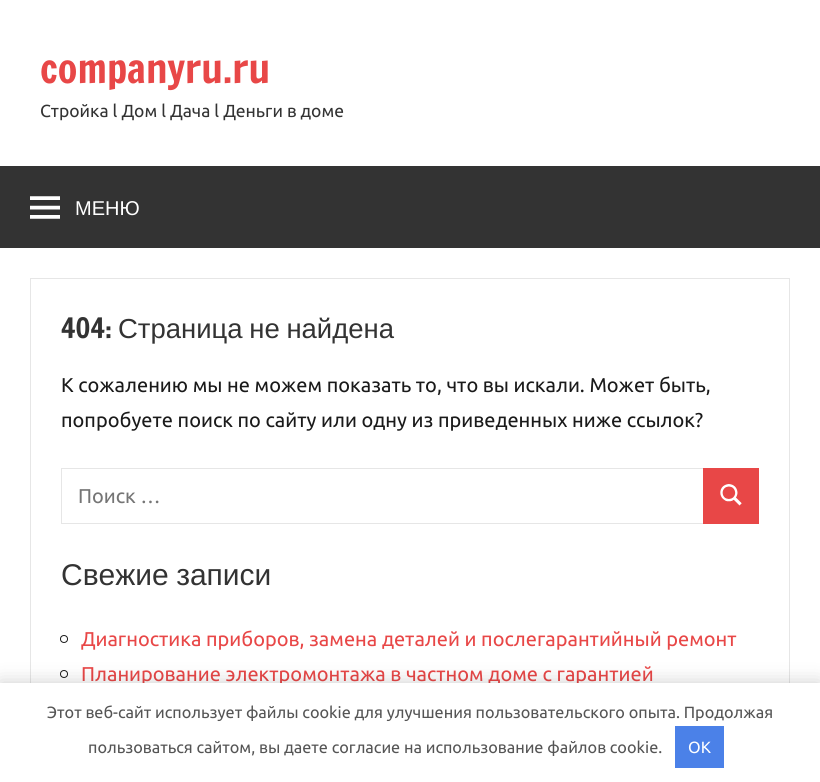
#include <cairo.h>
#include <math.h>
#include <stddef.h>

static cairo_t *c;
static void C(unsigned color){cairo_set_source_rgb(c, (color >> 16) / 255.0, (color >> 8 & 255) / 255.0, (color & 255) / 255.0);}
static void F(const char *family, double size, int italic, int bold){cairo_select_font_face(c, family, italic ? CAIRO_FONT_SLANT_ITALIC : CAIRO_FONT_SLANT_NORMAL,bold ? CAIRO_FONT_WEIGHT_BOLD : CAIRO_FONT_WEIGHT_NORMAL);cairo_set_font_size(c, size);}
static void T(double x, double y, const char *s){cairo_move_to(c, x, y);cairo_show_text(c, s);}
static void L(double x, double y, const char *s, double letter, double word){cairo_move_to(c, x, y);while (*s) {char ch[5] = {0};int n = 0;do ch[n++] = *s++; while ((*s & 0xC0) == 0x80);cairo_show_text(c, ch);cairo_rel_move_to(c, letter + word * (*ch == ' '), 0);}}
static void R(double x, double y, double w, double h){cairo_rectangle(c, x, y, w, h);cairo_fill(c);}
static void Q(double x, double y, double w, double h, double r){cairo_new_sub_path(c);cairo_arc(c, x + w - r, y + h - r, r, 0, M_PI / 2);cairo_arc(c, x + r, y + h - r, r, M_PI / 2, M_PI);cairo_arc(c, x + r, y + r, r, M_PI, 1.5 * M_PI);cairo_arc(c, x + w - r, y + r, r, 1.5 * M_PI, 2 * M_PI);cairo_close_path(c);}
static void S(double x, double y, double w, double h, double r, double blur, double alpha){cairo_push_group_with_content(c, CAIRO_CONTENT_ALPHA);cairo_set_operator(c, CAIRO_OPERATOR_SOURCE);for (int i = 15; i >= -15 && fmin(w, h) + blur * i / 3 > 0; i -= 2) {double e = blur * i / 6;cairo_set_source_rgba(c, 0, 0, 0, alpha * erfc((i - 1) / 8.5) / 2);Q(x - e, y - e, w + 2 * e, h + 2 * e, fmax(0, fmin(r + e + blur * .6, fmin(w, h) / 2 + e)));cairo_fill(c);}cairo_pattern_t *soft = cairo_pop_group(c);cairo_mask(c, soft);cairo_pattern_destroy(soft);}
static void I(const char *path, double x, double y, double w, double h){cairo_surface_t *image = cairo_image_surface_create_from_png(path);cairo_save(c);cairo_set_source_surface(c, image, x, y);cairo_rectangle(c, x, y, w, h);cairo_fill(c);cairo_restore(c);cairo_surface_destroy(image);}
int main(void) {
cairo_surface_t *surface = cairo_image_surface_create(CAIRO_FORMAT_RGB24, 820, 782);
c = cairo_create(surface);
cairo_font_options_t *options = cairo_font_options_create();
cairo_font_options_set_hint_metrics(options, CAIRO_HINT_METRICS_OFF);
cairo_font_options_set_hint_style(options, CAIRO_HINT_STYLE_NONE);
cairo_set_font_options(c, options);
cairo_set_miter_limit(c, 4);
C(0xffffff);
cairo_paint(c);
F("Francois One",40,0,0);
C(0xe84747);
T(40,83,"companyru.ru");
F("Ubuntu",17.5,0,0);
C(0x333333);
T(40,117,"Стройка l Дом l Дача l Деньги в доме");
R(0,166,820,82);
I("1.png",30,196,30,23);
F("Liberation Sans",20,0,0);
C(0xffffff);
T(75,215,"МЕНЮ");
cairo_rectangle(c,30.5,278.5,759,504);
C(0xe6e6e6);
cairo_set_line_width(c,1);
cairo_stroke(c);
F("Francois One",27.5,0,0);
C(0x333333);
T(61,338,"404:");
F("Liberation Sans",27.5,0,0);
L(118,338,"Страница не найдена",0,-1);
F("Ubuntu",20,0,0);
C(0x1a1a1a);
T(61,392,"К сожалению мы не можем показать то, что вы искали. Может быть,");
T(61,427,"попробуете поиск по сайту или одну из приведенных ниже ссылок?");
cairo_rectangle(c,61.5,468.5,642,55);
C(0xe6e6e6);
cairo_stroke(c);
C(0x757575);
T(78,503,"Поиск …");
C(0xe84747);
R(703,468,56,56);
I("2.png",720,484,22,22);
F("Liberation Sans",30,0,0);
C(0x333333);
L(61,585,"Свежие записи",0,-1);
cairo_new_path(c);
cairo_arc(c,64,639,3.5,0,2 * M_PI);
C(0x1a1a1a);
cairo_stroke(c);
F("Ubuntu",20,0,0);
C(0xe84747);
T(81,646,"Диагностика приборов, замена деталей и послегарантийный ремонт");
cairo_new_path(c);
cairo_arc(c,64,674,3.5,0,2 * M_PI);
C(0x1a1a1a);
cairo_stroke(c);
C(0xe84747);
T(81,681,"Планирование электромонтажа в частном доме с гарантией");
C(0x000000);
S(0,683,820,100,0,9.5,.2);
C(0xffffff);
R(0,683,820,99);
F("Ubuntu",16.25,0,0);
C(0x555555);
T(47,718,"Этот веб-сайт использует файлы cookie для улучшения пользовательского опыта. Продолжая");
T(88,753,"пользоваться сайтом, вы даете согласие на использование файлов cookie.");
C(0x4b81e8);
R(675,726,49,42);
C(0xffffff);
T(688,753,"OK");
cairo_surface_write_to_png(surface, "o.png");
cairo_font_options_destroy(options);
cairo_destroy(c);
cairo_surface_destroy(surface);
return 0;
}
